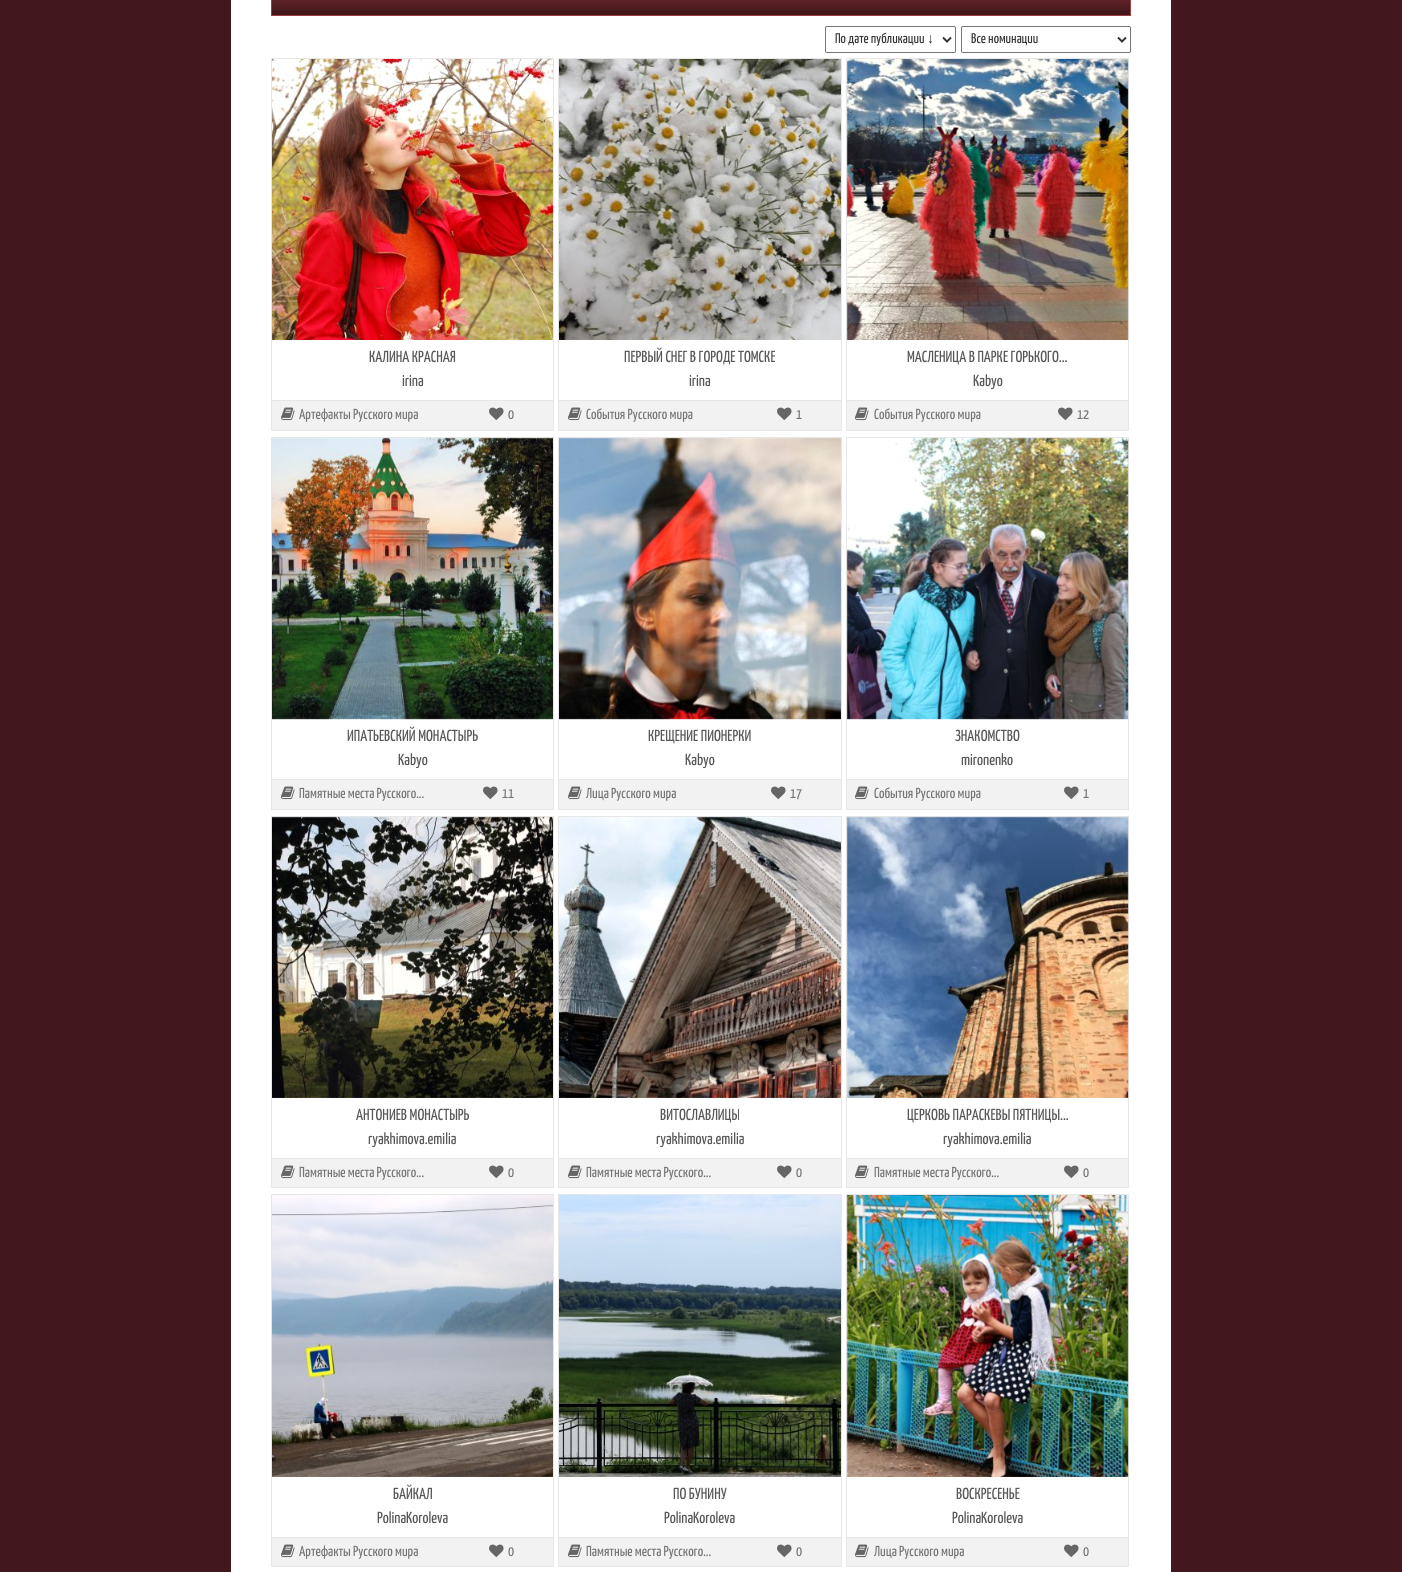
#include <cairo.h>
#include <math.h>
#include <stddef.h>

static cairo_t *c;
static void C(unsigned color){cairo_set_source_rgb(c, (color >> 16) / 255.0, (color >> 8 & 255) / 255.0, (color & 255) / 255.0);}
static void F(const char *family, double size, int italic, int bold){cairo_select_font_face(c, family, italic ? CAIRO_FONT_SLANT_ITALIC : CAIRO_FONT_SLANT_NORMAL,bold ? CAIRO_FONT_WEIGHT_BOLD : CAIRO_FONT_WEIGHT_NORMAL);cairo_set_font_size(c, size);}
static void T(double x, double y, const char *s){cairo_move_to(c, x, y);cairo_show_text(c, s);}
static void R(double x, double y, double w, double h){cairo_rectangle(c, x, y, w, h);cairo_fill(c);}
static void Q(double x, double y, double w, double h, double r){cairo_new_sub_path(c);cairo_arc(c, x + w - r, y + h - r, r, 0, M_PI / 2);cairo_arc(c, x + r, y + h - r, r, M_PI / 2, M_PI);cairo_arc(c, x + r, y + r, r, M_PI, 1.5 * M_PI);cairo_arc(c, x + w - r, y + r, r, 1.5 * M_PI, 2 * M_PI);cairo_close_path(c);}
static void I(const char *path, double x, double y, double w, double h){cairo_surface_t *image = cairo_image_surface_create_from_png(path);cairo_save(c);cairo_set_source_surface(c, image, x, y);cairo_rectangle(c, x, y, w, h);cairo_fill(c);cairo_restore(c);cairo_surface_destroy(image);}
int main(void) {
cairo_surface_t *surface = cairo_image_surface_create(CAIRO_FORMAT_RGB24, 1402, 1572);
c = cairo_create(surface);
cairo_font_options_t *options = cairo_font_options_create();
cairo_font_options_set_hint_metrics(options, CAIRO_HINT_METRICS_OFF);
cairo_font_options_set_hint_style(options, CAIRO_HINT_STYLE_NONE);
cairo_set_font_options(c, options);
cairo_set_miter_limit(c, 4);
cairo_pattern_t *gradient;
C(0x42181e);
cairo_paint(c);
C(0xffffff);
R(231,0,940,1572);
gradient = cairo_pattern_create_linear(701,-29,701,15);
cairo_pattern_add_color_stop_rgba(gradient,0,0.616,0.239,0.267,1);
cairo_pattern_add_color_stop_rgba(gradient,1,0.243,0.086,0.098,1);
cairo_set_source(c,gradient);
cairo_pattern_destroy(gradient);
R(272,0,858,15);
cairo_rectangle(c,271.5,-.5,859,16);
C(0x9d3d44);
cairo_set_line_width(c,1);
cairo_stroke(c);
Q(825.5,26.5,130,26,1.5);
C(0x767676);
cairo_stroke(c);
cairo_new_path(c);
cairo_move_to(c,943,37.5);
cairo_line_to(c,947,41.5);
cairo_line_to(c,951,37.5);
C(0x333333);
cairo_set_line_width(c,2);
cairo_stroke(c);
F("Yanone Kaffeesatz ExtraLight",14,0,0);
T(835,43,"По дате публикации");
F("Liberation Sans",14,0,0);
T(927,43,"↓");
Q(961.5,26.5,169,26,1.5);
C(0x767676);
cairo_set_line_width(c,1);
cairo_stroke(c);
cairo_new_path(c);
cairo_move_to(c,1118,37.5);
cairo_line_to(c,1122,41.5);
cairo_line_to(c,1126,37.5);
C(0x333333);
cairo_set_line_width(c,2);
cairo_stroke(c);
F("Yanone Kaffeesatz ExtraLight",14,0,0);
T(971,43,"Все номинации");
C(0xe7e7e7);
R(271,58,283,1);
R(553,58,1,342);
R(271,58,1,342);
I("1.png",272,59,281,281);
F("Yanone Kaffeesatz ExtraLight",16,0,0);
C(0x575757);
T(369,362,"КАЛИНА КРАСНАЯ");
T(402,386,"irina");
C(0xf2f2f2);
cairo_rectangle(c,271.5,400.5,282,30);
cairo_fill_preserve(c);
C(0xe7e7e7);
cairo_set_line_width(c,1);
cairo_stroke(c);
I("2.png",281,407,14,14);
F("Yanone Kaffeesatz ExtraLight",14.5,0,0);
C(0x747474);
T(299,419,"Артефакты Русского мира");
I("3.png",489,407,15,13);
T(508,419,"0");
C(0xe7e7e7);
R(558,58,284,1);
R(841,58,1,342);
R(558,58,1,342);
I("4.png",559,59,282,281);
F("Yanone Kaffeesatz ExtraLight",16,0,0);
C(0x575757);
T(624,362,"ПЕРВЫЙ СНЕГ В ГОРОДЕ ТОМСКЕ");
T(689,386,"irina");
C(0xf2f2f2);
cairo_rectangle(c,558.5,400.5,283,30);
cairo_fill_preserve(c);
C(0xe7e7e7);
cairo_stroke(c);
I("2.png",568,407,14,14);
F("Yanone Kaffeesatz ExtraLight",14.5,0,0);
C(0x747474);
T(586,419,"События Русского мира");
I("3.png",777,407,15,13);
T(796,419,"1");
C(0xe7e7e7);
R(846,58,283,1);
R(1128,58,1,342);
R(846,58,1,342);
I("5.png",846,59,283,281);
F("Yanone Kaffeesatz ExtraLight",16,0,0);
C(0x575757);
T(907,362,"МАСЛЕНИЦА В ПАРКЕ ГОРЬКОГО...");
T(973,386,"Kabyo");
C(0xf2f2f2);
cairo_rectangle(c,846.5,400.5,282,30);
cairo_fill_preserve(c);
C(0xe7e7e7);
cairo_stroke(c);
I("2.png",855,407,14,14);
F("Yanone Kaffeesatz ExtraLight",14.5,0,0);
C(0x747474);
T(874,419,"События Русского мира");
I("3.png",1058,407,15,13);
T(1077,419,"12");
C(0xe7e7e7);
R(271,437,283,1);
R(553,437,1,342);
R(271,437,1,342);
I("6.png",272,437,281,283);
F("Yanone Kaffeesatz ExtraLight",16,0,0);
C(0x575757);
T(347,741,"ИПАТЬЕВСКИЙ МОНАСТЫРЬ");
T(398,765,"Kabyo");
C(0xf2f2f2);
cairo_rectangle(c,271.5,779.5,282,30);
cairo_fill_preserve(c);
C(0xe7e7e7);
cairo_stroke(c);
I("2.png",281,786,14,14);
F("Yanone Kaffeesatz ExtraLight",14.5,0,0);
C(0x747474);
T(299,798,"Памятные места Русского...");
I("3.png",483,786,15,13);
T(502,798,"11");
C(0xe7e7e7);
R(558,437,284,1);
R(841,437,1,342);
R(558,437,1,342);
I("7.png",559,437,282,283);
F("Yanone Kaffeesatz ExtraLight",16,0,0);
C(0x575757);
T(648,741,"КРЕЩЕНИЕ ПИОНЕРКИ");
T(685,765,"Kabyo");
C(0xf2f2f2);
cairo_rectangle(c,558.5,779.5,283,30);
cairo_fill_preserve(c);
C(0xe7e7e7);
cairo_stroke(c);
I("2.png",568,786,14,14);
F("Yanone Kaffeesatz ExtraLight",14.5,0,0);
C(0x747474);
T(586,798,"Лица Русского мира");
I("3.png",771,786,15,13);
T(790,798,"17");
C(0xe7e7e7);
R(846,437,283,1);
R(1128,437,1,342);
R(846,437,1,342);
I("8.png",846,437,283,283);
F("Yanone Kaffeesatz ExtraLight",16,0,0);
C(0x575757);
T(955,741,"ЗНАКОМСТВО");
T(961,765,"mironenko");
C(0xf2f2f2);
cairo_rectangle(c,846.5,779.5,282,30);
cairo_fill_preserve(c);
C(0xe7e7e7);
cairo_stroke(c);
I("2.png",855,786,14,14);
F("Yanone Kaffeesatz ExtraLight",14.5,0,0);
C(0x747474);
T(874,798,"События Русского мира");
I("3.png",1064,786,15,13);
T(1083,798,"1");
C(0xe7e7e7);
R(271,816,283,1);
R(553,816,1,342);
R(271,816,1,342);
I("9.png",272,816,281,282);
F("Yanone Kaffeesatz ExtraLight",16,0,0);
C(0x575757);
T(356,1120,"АНТОНИЕВ МОНАСТЫРЬ");
T(368,1144,"ryakhimova.emilia");
C(0xf2f2f2);
cairo_rectangle(c,271.5,1158.5,282,29);
cairo_fill_preserve(c);
C(0xe7e7e7);
cairo_stroke(c);
I("2.png",281,1165,14,14);
F("Yanone Kaffeesatz ExtraLight",14.5,0,0);
C(0x747474);
T(299,1177,"Памятные места Русского...");
I("3.png",489,1165,15,13);
T(508,1177,"0");
C(0xe7e7e7);
R(558,816,284,1);
R(841,816,1,342);
R(558,816,1,342);
I("10.png",559,816,282,282);
F("Yanone Kaffeesatz ExtraLight",16,0,0);
C(0x575757);
T(660,1120,"ВИТОСЛАВЛИЦЫ");
T(656,1144,"ryakhimova.emilia");
C(0xf2f2f2);
cairo_rectangle(c,558.5,1158.5,283,29);
cairo_fill_preserve(c);
C(0xe7e7e7);
cairo_stroke(c);
I("2.png",568,1165,14,14);
F("Yanone Kaffeesatz ExtraLight",14.5,0,0);
C(0x747474);
T(586,1177,"Памятные места Русского...");
I("3.png",777,1165,15,13);
T(796,1177,"0");
C(0xe7e7e7);
R(846,816,283,1);
R(1128,816,1,342);
R(846,816,1,342);
I("11.png",846,816,283,282);
F("Yanone Kaffeesatz ExtraLight",16,0,0);
C(0x575757);
T(907,1120,"ЦЕРКОВЬ ПАРАСКЕВЫ ПЯТНИЦЫ...");
T(943,1144,"ryakhimova.emilia");
C(0xf2f2f2);
cairo_rectangle(c,846.5,1158.5,282,29);
cairo_fill_preserve(c);
C(0xe7e7e7);
cairo_stroke(c);
I("2.png",855,1165,14,14);
F("Yanone Kaffeesatz ExtraLight",14.5,0,0);
C(0x747474);
T(874,1177,"Памятные места Русского...");
I("3.png",1064,1165,15,13);
T(1083,1177,"0");
C(0xe7e7e7);
R(271,1194,283,1);
R(553,1194,1,343);
R(271,1194,1,343);
I("12.png",272,1195,281,282);
F("Yanone Kaffeesatz ExtraLight",16,0,0);
C(0x575757);
T(393,1499,"БАЙКАЛ");
T(377,1523,"PolinaKoroleva");
C(0xf2f2f2);
cairo_rectangle(c,271.5,1537.5,282,29);
cairo_fill_preserve(c);
C(0xe7e7e7);
cairo_stroke(c);
I("2.png",281,1544,14,14);
F("Yanone Kaffeesatz ExtraLight",14.5,0,0);
C(0x747474);
T(299,1556,"Артефакты Русского мира");
I("3.png",489,1544,15,13);
T(508,1556,"0");
C(0xe7e7e7);
R(558,1194,284,1);
R(841,1194,1,343);
R(558,1194,1,343);
I("13.png",559,1195,282,282);
F("Yanone Kaffeesatz ExtraLight",16,0,0);
C(0x575757);
T(673,1499,"ПО БУНИНУ");
T(664,1523,"PolinaKoroleva");
C(0xf2f2f2);
cairo_rectangle(c,558.5,1537.5,283,29);
cairo_fill_preserve(c);
C(0xe7e7e7);
cairo_stroke(c);
I("2.png",568,1544,14,14);
F("Yanone Kaffeesatz ExtraLight",14.5,0,0);
C(0x747474);
T(586,1556,"Памятные места Русского...");
I("3.png",777,1544,15,13);
T(796,1556,"0");
C(0xe7e7e7);
R(846,1194,283,1);
R(1128,1194,1,343);
R(846,1194,1,343);
I("14.png",846,1195,283,282);
F("Yanone Kaffeesatz ExtraLight",16,0,0);
C(0x575757);
T(956,1499,"ВОСКРЕСЕНЬЕ");
T(952,1523,"PolinaKoroleva");
C(0xf2f2f2);
cairo_rectangle(c,846.5,1537.5,282,29);
cairo_fill_preserve(c);
C(0xe7e7e7);
cairo_stroke(c);
I("2.png",855,1544,14,14);
F("Yanone Kaffeesatz ExtraLight",14.5,0,0);
C(0x747474);
T(874,1556,"Лица Русского мира");
I("3.png",1064,1544,15,13);
T(1083,1556,"0");
cairo_surface_write_to_png(surface, "o.png");
cairo_font_options_destroy(options);
cairo_destroy(c);
cairo_surface_destroy(surface);
return 0;
}
